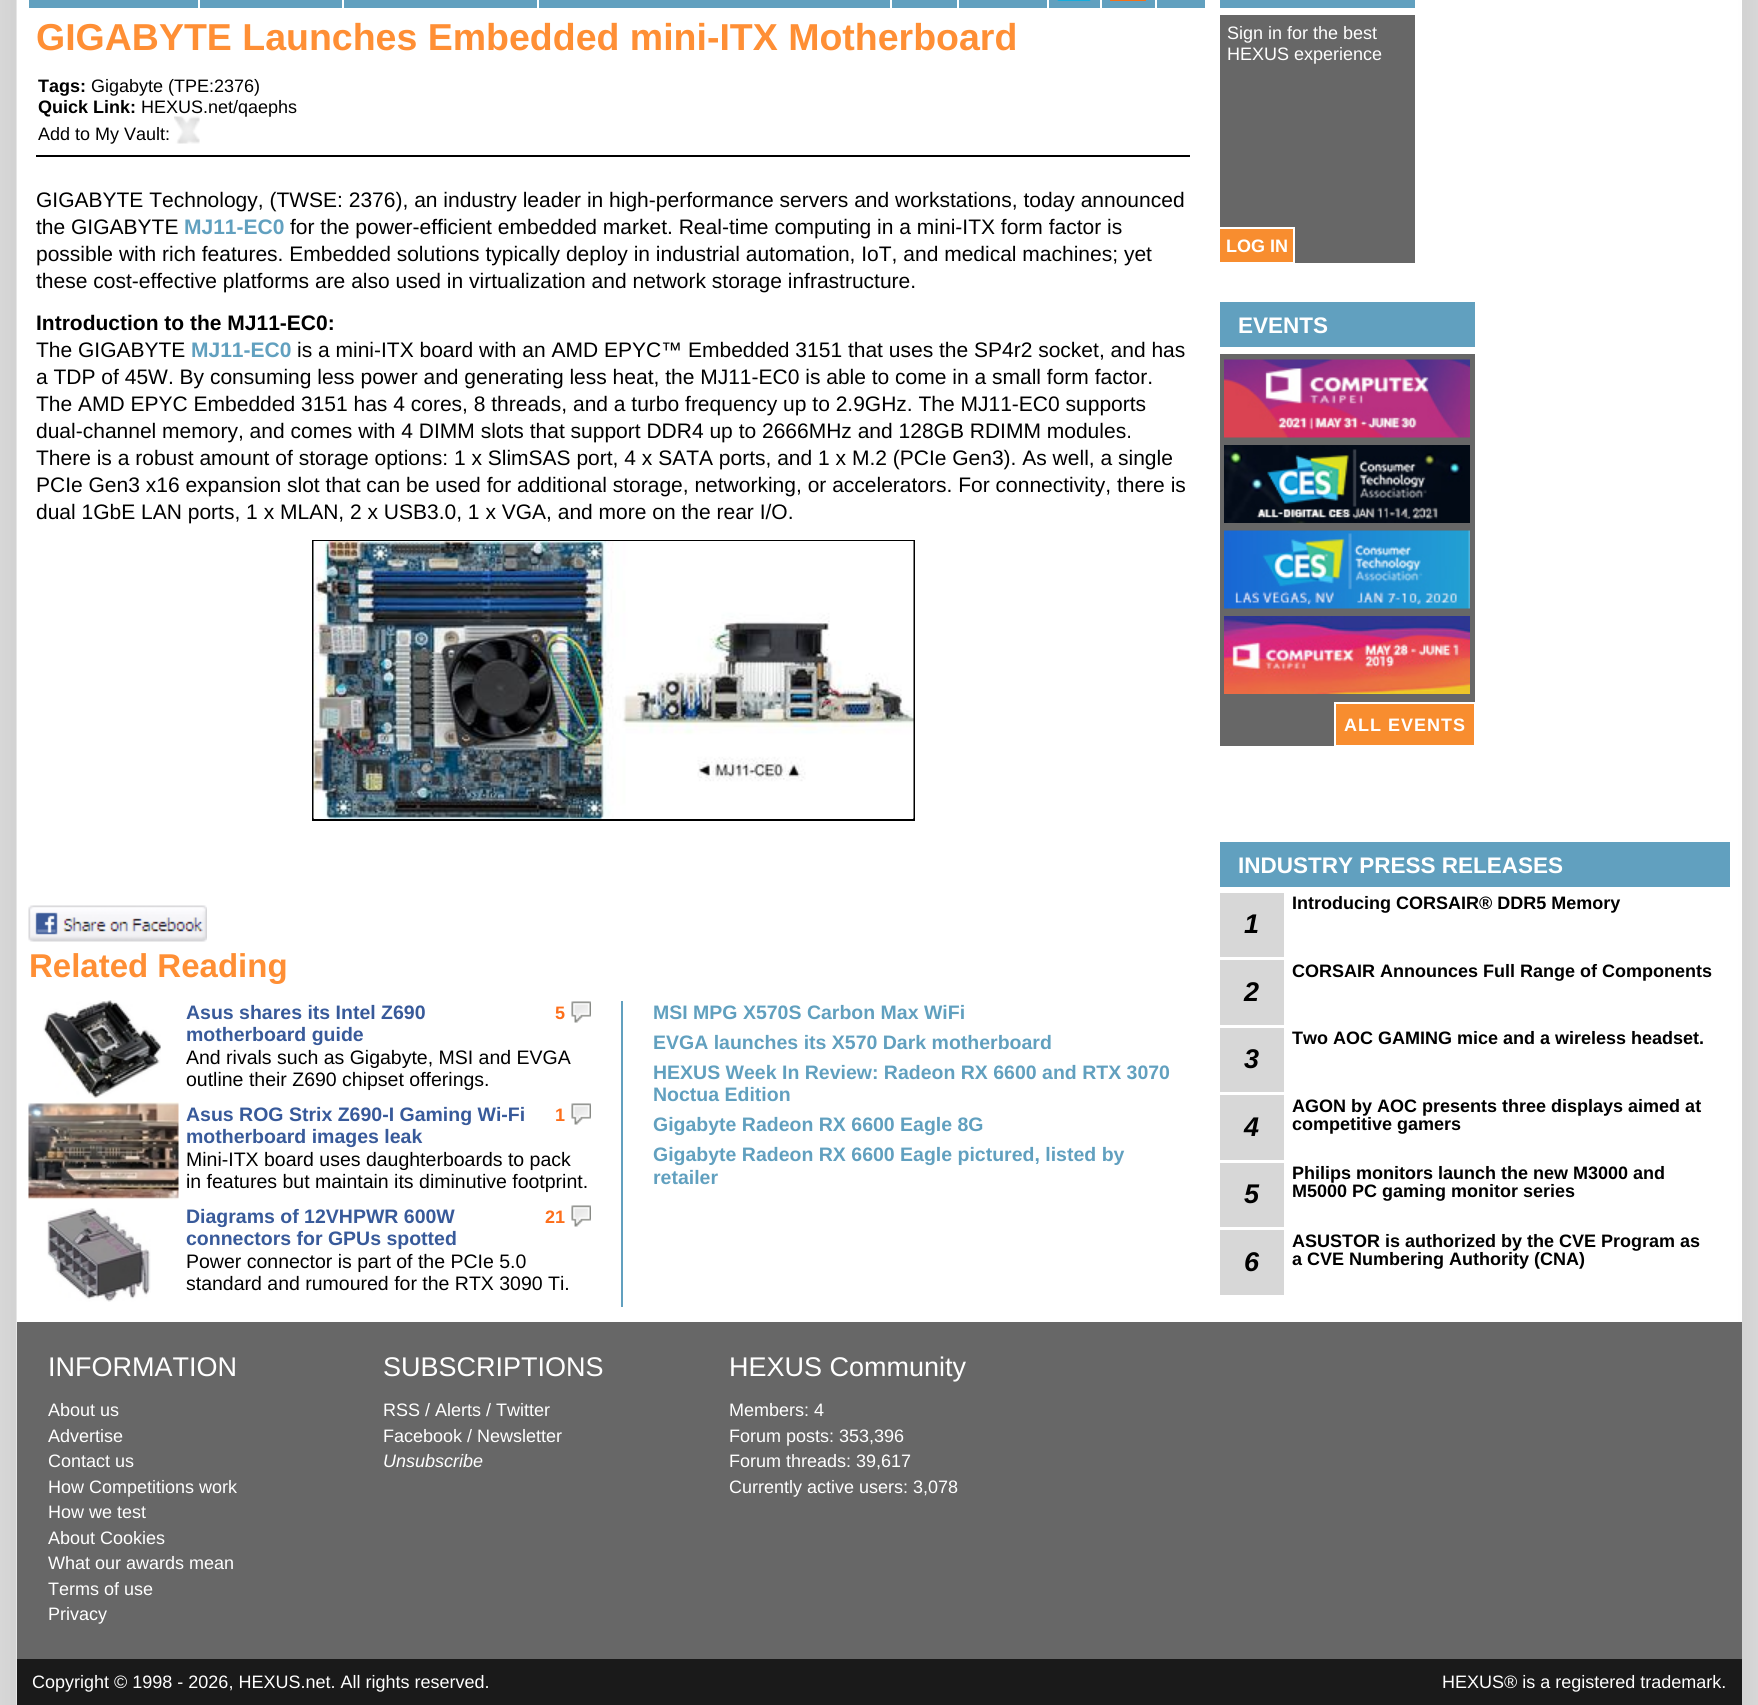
#include <cairo.h>
#include <math.h>
#include <stddef.h>

static cairo_t *c;
static void C(unsigned color){cairo_set_source_rgb(c, (color >> 16) / 255.0, (color >> 8 & 255) / 255.0, (color & 255) / 255.0);}
static void F(const char *family, double size, int italic, int bold){cairo_select_font_face(c, family, italic ? CAIRO_FONT_SLANT_ITALIC : CAIRO_FONT_SLANT_NORMAL,bold ? CAIRO_FONT_WEIGHT_BOLD : CAIRO_FONT_WEIGHT_NORMAL);cairo_set_font_size(c, size);}
static void T(double x, double y, const char *s){cairo_move_to(c, x, y);cairo_show_text(c, s);}
static void L(double x, double y, const char *s, double letter, double word){cairo_move_to(c, x, y);while (*s) {char ch[5] = {0};int n = 0;do ch[n++] = *s++; while ((*s & 0xC0) == 0x80);cairo_show_text(c, ch);cairo_rel_move_to(c, letter + word * (*ch == ' '), 0);}}
static void R(double x, double y, double w, double h){cairo_rectangle(c, x, y, w, h);cairo_fill(c);}
static void I(const char *path, double x, double y, double w, double h){cairo_surface_t *image = cairo_image_surface_create_from_png(path);cairo_save(c);cairo_set_source_surface(c, image, x, y);cairo_rectangle(c, x, y, w, h);cairo_fill(c);cairo_restore(c);cairo_surface_destroy(image);}
int main(void) {
cairo_surface_t *surface = cairo_image_surface_create(CAIRO_FORMAT_RGB24, 1758, 1705);
c = cairo_create(surface);
cairo_font_options_t *options = cairo_font_options_create();
cairo_font_options_set_hint_metrics(options, CAIRO_HINT_METRICS_OFF);
cairo_font_options_set_hint_style(options, CAIRO_HINT_STYLE_NONE);
cairo_set_font_options(c, options);
cairo_set_miter_limit(c, 4);
C(0xffffff);
cairo_paint(c);
I("1.png",0,0,1758,1705);
C(0xffffff);
R(1741,0,1,1322);
C(0x61a0bf);
R(29,0,1176,8);
C(0xffffff);
R(198,0,2,8);
R(342,0,2,8);
R(537,0,2,8);
R(890,0,2,8);
R(957,0,2,8);
R(1047,0,2,8);
I("2.png",1057,0,34,1);
R(1100,0,2,8);
C(0xf1711a);
R(1110,0,36,1);
C(0xffffff);
R(1155,0,2,8);
C(0x000000);
R(36,155,1154,2);
F("Liberation Sans",37.5,0,1);
C(0xff8f35);
T(36,50,"GIGABYTE Launches Embedded mini-ITX Motherboard");
F("Liberation Sans",18,0,1);
C(0x000000);
T(38,92,"Tags:");
F("Liberation Sans",18,0,0);
T(91,92,"Gigabyte (TPE:2376)");
F("Liberation Sans",18,0,1);
T(38,113,"Quick Link:");
F("Liberation Sans",18,0,0);
T(141,113,"HEXUS.net/qaephs");
T(38,140,"Add to My Vault:");
I("3.png",174,116,26,28);
F("Liberation Sans",21,0,0);
T(36,207,"GIGABYTE Technology, (TWSE: 2376), an industry leader in high-performance servers and workstations, today announced");
T(36,234,"the GIGABYTE");
F("Liberation Sans",21,0,1);
C(0x61a0bf);
T(184,234,"MJ11-EC0");
F("Liberation Sans",21,0,0);
C(0x000000);
T(290,234,"for the power-efficient embedded market. Real-time computing in a mini-ITX form factor is");
T(36,261,"possible with rich features. Embedded solutions typically deploy in industrial automation, IoT, and medical machines; yet");
T(36,288,"these cost-effective platforms are also used in virtualization and network storage infrastructure.");
F("Liberation Sans",21,0,1);
T(36,330,"Introduction to the MJ11-EC0:");
F("Liberation Sans",21,0,0);
T(36,357,"The GIGABYTE");
F("Liberation Sans",21,0,1);
C(0x61a0bf);
T(191,357,"MJ11-EC0");
F("Liberation Sans",21,0,0);
C(0x000000);
T(297,357,"is a mini-ITX board with an AMD EPYC™ Embedded 3151 that uses the SP4r2 socket, and has");
T(36,384,"a TDP of 45W. By consuming less power and generating less heat, the MJ11-EC0 is able to come in a small form factor.");
T(36,411,"The AMD EPYC Embedded 3151 has 4 cores, 8 threads, and a turbo frequency up to 2.9GHz. The MJ11-EC0 supports");
T(36,438,"dual-channel memory, and comes with 4 DIMM slots that support DDR4 up to 2666MHz and 128GB RDIMM modules.");
T(36,465,"There is a robust amount of storage options: 1 x SlimSAS port, 4 x SATA ports, and 1 x M.2 (PCIe Gen3). As well, a single");
T(36,492,"PCIe Gen3 x16 expansion slot that can be used for additional storage, networking, or accelerators. For connectivity, there is");
T(36,519,"dual 1GbE LAN ports, 1 x MLAN, 2 x USB3.0, 1 x VGA, and more on the rear I/O.");
cairo_rectangle(c,313,541,601,279);
cairo_stroke(c);
I("4.png",313,541,601,278);
I("5.png",28,905,179,37);
F("Liberation Sans",33,0,1);
C(0xff8f35);
T(29,977,"Related Reading");
C(0x61a0bf);
R(621,1001,2,306);
I("6.png",43,1000,118,98);
F("Liberation Sans",19.5,0,1);
C(0x385a9a);
T(186,1019,"Asus shares its Intel Z690");
I("7.png",571,1001,20,22);
F("Liberation Sans",18,0,1);
C(0xfd6f1b);
T(555,1019,"5");
F("Liberation Sans",19.5,0,1);
C(0x385a9a);
T(186,1041,"motherboard guide");
F("Liberation Sans",19.5,0,0);
C(0x000000);
T(186,1064,"And rivals such as Gigabyte, MSI and EVGA");
T(186,1086,"outline their Z690 chipset offerings.");
I("8.png",28,1102,151,98);
F("Liberation Sans",19.5,0,1);
C(0x385a9a);
T(186,1121,"Asus ROG Strix Z690-I Gaming Wi-Fi");
I("7.png",571,1103,20,22);
F("Liberation Sans",18,0,1);
C(0xfd6f1b);
T(555,1121,"1");
F("Liberation Sans",19.5,0,1);
C(0x385a9a);
T(186,1143,"motherboard images leak");
F("Liberation Sans",19.5,0,0);
C(0x000000);
T(186,1166,"Mini-ITX board uses daughterboards to pack");
T(186,1188,"in features but maintain its diminutive footprint.");
I("9.png",47,1208,104,94);
F("Liberation Sans",19.5,0,1);
C(0x385a9a);
T(186,1223,"Diagrams of 12VHPWR 600W");
I("7.png",571,1205,20,22);
F("Liberation Sans",18,0,1);
C(0xfd6f1b);
T(545,1223,"21");
F("Liberation Sans",19.5,0,1);
C(0x385a9a);
T(186,1245,"connectors for GPUs spotted");
F("Liberation Sans",19.5,0,0);
C(0x000000);
T(186,1268,"Power connector is part of the PCIe 5.0");
T(186,1290,"standard and rumoured for the RTX 3090 Ti.");
F("Liberation Sans",19.5,0,1);
C(0x61a0bf);
T(653,1019,"MSI MPG X570S Carbon Max WiFi");
T(653,1049,"EVGA launches its X570 Dark motherboard");
T(653,1079,"HEXUS Week In Review: Radeon RX 6600 and RTX 3070");
T(653,1101,"Noctua Edition");
T(653,1131,"Gigabyte Radeon RX 6600 Eagle 8G");
T(653,1161,"Gigabyte Radeon RX 6600 Eagle pictured, listed by");
T(653,1184,"retailer");
R(1220,0,195,8);
C(0x676767);
R(1220,15,195,248);
F("Liberation Sans",18,0,0);
C(0xffffff);
T(1227,39,"Sign in for the best");
T(1227,60,"HEXUS experience");
C(0xf88d2f);
cairo_rectangle(c,1219,228,75,35);
cairo_fill_preserve(c);
C(0xffffff);
cairo_stroke(c);
F("Liberation Sans",18,0,1);
T(1226,252,"LOG IN");
C(0x61a0bf);
R(1220,302,255,45);
F("Liberation Sans",22.5,0,1);
C(0xffffff);
T(1238,333,"EVENTS");
C(0x676767);
R(1220,354,255,392);
I("10.png",1224,359,246,79);
I("11.png",1224,445,246,78);
I("12.png",1224,530,246,79);
I("13.png",1224,616,246,78);
C(0xf88d2f);
R(1336,704,138,41);
cairo_save(c);
cairo_rectangle(c,1220,302,255,444);
cairo_clip(c);
cairo_rectangle(c,1335,703,140,43);
C(0xffffff);
cairo_stroke(c);
cairo_restore(c);
F("Liberation Sans",18,0,1);
C(0xffffff);
L(1344,731,"ALL EVENTS",1,0);
C(0x61a0bf);
R(1220,842,510,45);
F("Liberation Sans",22.5,0,1);
C(0xffffff);
T(1238,873,"INDUSTRY PRESS RELEASES");
F("Liberation Sans",18,0,1);
C(0x000000);
T(1292,909,"Introducing CORSAIR® DDR5 Memory");
C(0xd7d7d7);
R(1220,893,64,64);
F("Liberation Sans",27,1,1);
C(0x000000);
T(1244,933,"1");
F("Liberation Sans",18,0,1);
T(1292,977,"CORSAIR Announces Full Range of Components");
C(0xd7d7d7);
R(1220,960,64,65);
F("Liberation Sans",27,1,1);
C(0x000000);
T(1244,1001,"2");
F("Liberation Sans",18,0,1);
T(1292,1044,"Two AOC GAMING mice and a wireless headset.");
C(0xd7d7d7);
R(1220,1028,64,64);
F("Liberation Sans",27,1,1);
C(0x000000);
T(1244,1068,"3");
C(0xd7d7d7);
R(1220,1095,64,65);
C(0x000000);
T(1244,1136,"4");
F("Liberation Sans",18,0,1);
T(1292,1112,"AGON by AOC presents three displays aimed at");
T(1292,1130,"competitive gamers");
C(0xd7d7d7);
R(1220,1163,64,64);
F("Liberation Sans",27,1,1);
C(0x000000);
T(1244,1203,"5");
F("Liberation Sans",18,0,1);
T(1292,1179,"Philips monitors launch the new M3000 and");
T(1292,1197,"M5000 PC gaming monitor series");
C(0xd7d7d7);
R(1220,1230,64,65);
F("Liberation Sans",27,1,1);
C(0x000000);
T(1244,1271,"6");
F("Liberation Sans",18,0,1);
T(1292,1247,"ASUSTOR is authorized by the CVE Program as");
T(1292,1265,"a CVE Numbering Authority (CNA)");
C(0x676767);
R(17,1322,1725,337);
F("Liberation Sans",27,0,0);
C(0xffffff);
T(48,1376,"INFORMATION");
F("Liberation Sans",18,0,0);
T(48,1416,"About us");
T(48,1442,"Advertise");
T(48,1467,"Contact us");
T(48,1493,"How Competitions work");
T(48,1518,"How we test");
T(48,1544,"About Cookies");
T(48,1569,"What our awards mean");
T(48,1595,"Terms of use");
T(48,1620,"Privacy");
F("Liberation Sans",27,0,0);
T(383,1376,"SUBSCRIPTIONS");
F("Liberation Sans",18,0,0);
T(383,1416,"RSS / Alerts / Twitter");
T(383,1442,"Facebook / Newsletter");
F("Liberation Sans",18,1,0);
T(383,1467,"Unsubscribe");
F("Liberation Sans",27,0,0);
T(729,1376,"HEXUS Community");
F("Liberation Sans",18,0,0);
T(729,1416,"Members: 4");
T(729,1442,"Forum posts: 353,396");
T(729,1467,"Forum threads: 39,617");
T(729,1493,"Currently active users: 3,078");
C(0x1a1a1a);
R(17,1659,1725,46);
C(0xffffff);
T(32,1688,"Copyright © 1998 - 2026, HEXUS.net. All rights reserved.");
T(1442,1688,"HEXUS® is a registered trademark.");
cairo_surface_write_to_png(surface, "o.png");
cairo_font_options_destroy(options);
cairo_destroy(c);
cairo_surface_destroy(surface);
return 0;
}
